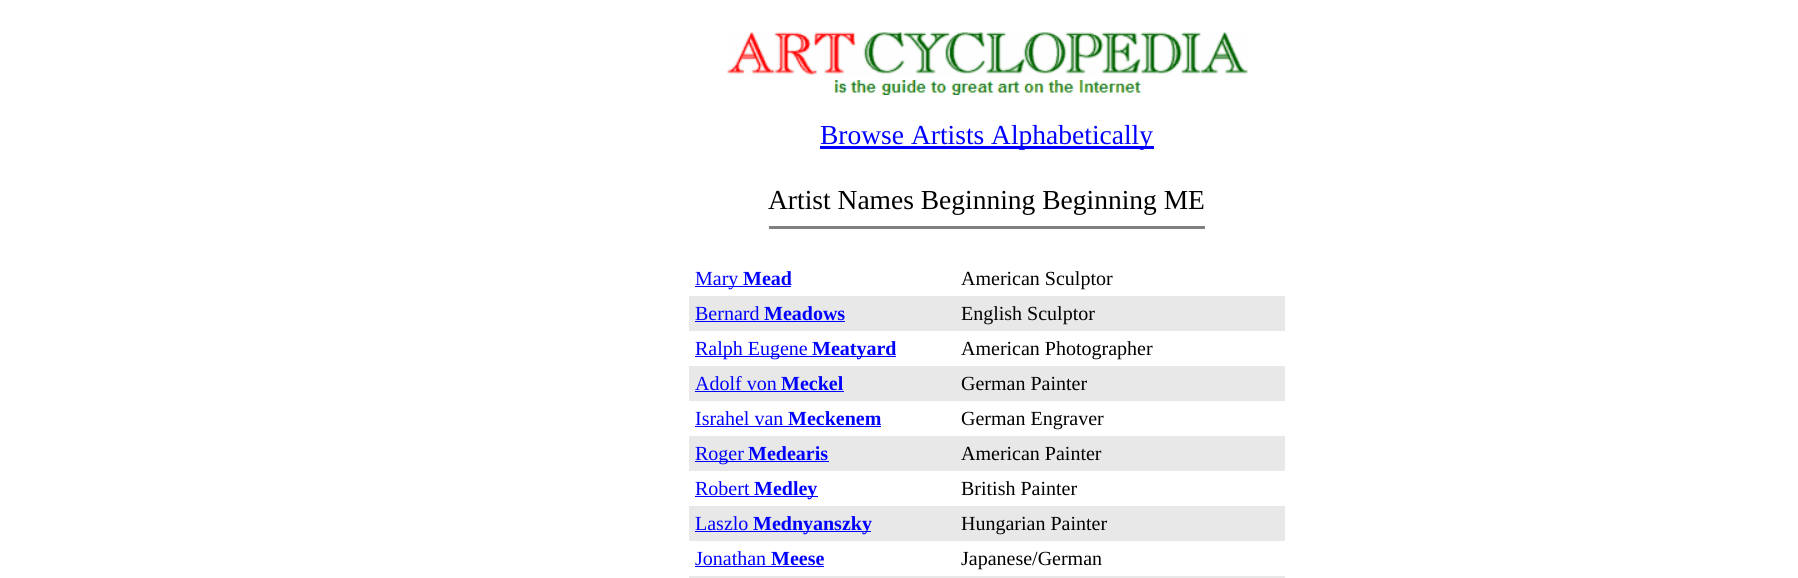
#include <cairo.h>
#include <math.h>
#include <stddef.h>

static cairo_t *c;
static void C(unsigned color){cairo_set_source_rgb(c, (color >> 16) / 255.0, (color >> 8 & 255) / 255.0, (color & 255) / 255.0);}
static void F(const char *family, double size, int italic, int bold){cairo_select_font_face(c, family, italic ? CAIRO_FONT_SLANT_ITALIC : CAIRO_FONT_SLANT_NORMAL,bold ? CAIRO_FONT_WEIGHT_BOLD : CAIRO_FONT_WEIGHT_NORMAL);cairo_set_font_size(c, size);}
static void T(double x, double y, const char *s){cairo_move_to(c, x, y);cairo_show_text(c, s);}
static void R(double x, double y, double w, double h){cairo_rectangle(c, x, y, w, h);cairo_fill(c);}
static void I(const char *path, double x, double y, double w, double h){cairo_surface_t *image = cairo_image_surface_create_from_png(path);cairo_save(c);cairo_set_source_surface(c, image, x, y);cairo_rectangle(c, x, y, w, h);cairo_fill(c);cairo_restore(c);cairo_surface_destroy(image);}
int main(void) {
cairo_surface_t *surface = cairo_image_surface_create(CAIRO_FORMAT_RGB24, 1798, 578);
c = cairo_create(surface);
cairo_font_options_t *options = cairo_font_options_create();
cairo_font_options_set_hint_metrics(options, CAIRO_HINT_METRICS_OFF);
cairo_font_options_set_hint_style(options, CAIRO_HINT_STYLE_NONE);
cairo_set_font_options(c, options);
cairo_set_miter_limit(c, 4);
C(0xffffff);
cairo_paint(c);
I("1.png",727,32,521,44);
I("2.png",833,80,309,15);
C(0x0000ff);
R(820,146,334,3);
F("Liberation Serif",27.5,0,0);
T(820,144,"Browse Artists Alphabetically");
C(0x000000);
T(768,209,"Artist Names Beginning Beginning ME");
C(0x808080);
R(769,226,436,3);
C(0x0000ff);
R(695,286,96,1);
F("Liberation Serif",20,0,0);
T(695,285,"Mary");
F("Liberation Serif",20,0,1);
T(743,285,"Mead");
F("Liberation Serif",20,0,0);
C(0x000000);
T(961,285,"American Sculptor");
C(0xe8e8e8);
R(689,296,596,35);
C(0x0000ff);
T(695,320,"Bernard");
R(695,321,150,1);
F("Liberation Serif",20,0,1);
T(764,320,"Meadows");
F("Liberation Serif",20,0,0);
C(0x000000);
T(961,320,"English Sculptor");
C(0x0000ff);
R(695,356,201,1);
T(695,355,"Ralph Eugene");
F("Liberation Serif",20,0,1);
T(812,355,"Meatyard");
F("Liberation Serif",20,0,0);
C(0x000000);
T(961,355,"American Photographer");
C(0xe8e8e8);
R(689,366,596,35);
C(0x0000ff);
T(695,390,"Adolf von");
F("Liberation Serif",20,0,1);
T(781,390,"Meckel");
R(695,391,149,1);
F("Liberation Serif",20,0,0);
C(0x000000);
T(961,390,"German Painter");
C(0x0000ff);
T(695,425,"Israhel van");
R(695,426,186,1);
F("Liberation Serif",20,0,1);
T(788,425,"Meckenem");
F("Liberation Serif",20,0,0);
C(0x000000);
T(961,425,"German Engraver");
C(0xe8e8e8);
R(689,436,596,35);
C(0x0000ff);
R(695,461,134,1);
T(695,460,"Roger");
F("Liberation Serif",20,0,1);
T(748,460,"Medearis");
F("Liberation Serif",20,0,0);
C(0x000000);
T(961,460,"American Painter");
C(0x0000ff);
T(695,495,"Robert");
R(695,496,123,1);
F("Liberation Serif",20,0,1);
T(754,495,"Medley");
F("Liberation Serif",20,0,0);
C(0x000000);
T(961,495,"British Painter");
C(0xe8e8e8);
R(689,506,596,35);
C(0x0000ff);
T(695,530,"Laszlo");
R(695,531,176,1);
F("Liberation Serif",20,0,1);
T(753,530,"Mednyanszky");
F("Liberation Serif",20,0,0);
C(0x000000);
T(961,530,"Hungarian Painter");
C(0x0000ff);
T(695,565,"Jonathan");
R(695,566,129,1);
F("Liberation Serif",20,0,1);
T(771,565,"Meese");
F("Liberation Serif",20,0,0);
C(0x000000);
T(961,565,"Japanese/German");
C(0xe8e8e8);
R(689,576,596,2);
cairo_surface_write_to_png(surface, "o.png");
cairo_font_options_destroy(options);
cairo_destroy(c);
cairo_surface_destroy(surface);
return 0;
}
